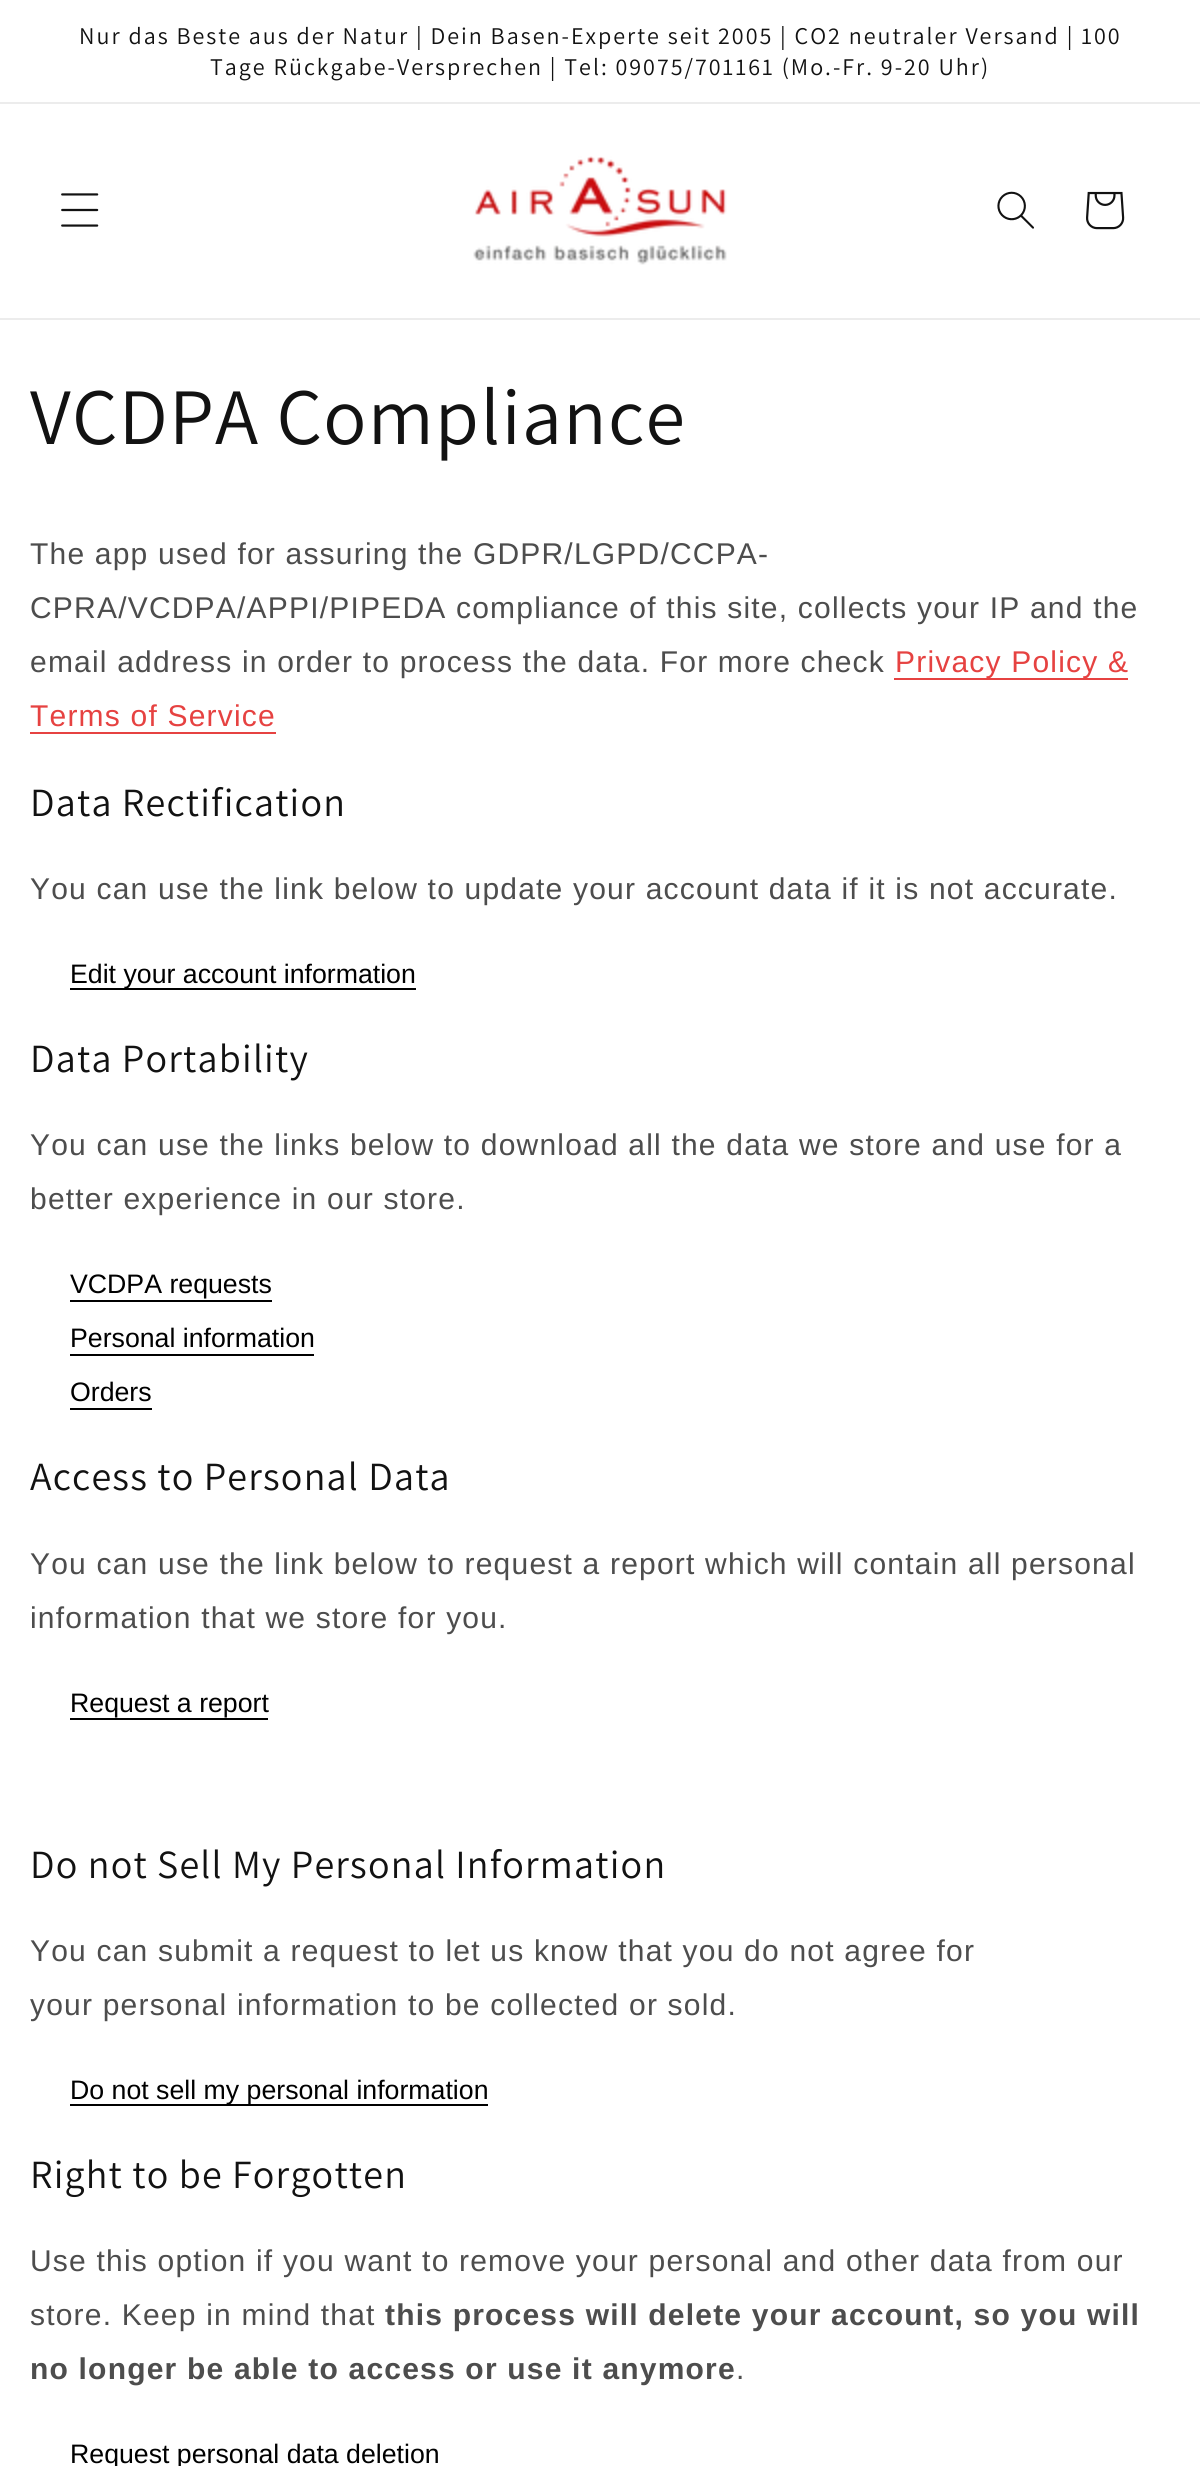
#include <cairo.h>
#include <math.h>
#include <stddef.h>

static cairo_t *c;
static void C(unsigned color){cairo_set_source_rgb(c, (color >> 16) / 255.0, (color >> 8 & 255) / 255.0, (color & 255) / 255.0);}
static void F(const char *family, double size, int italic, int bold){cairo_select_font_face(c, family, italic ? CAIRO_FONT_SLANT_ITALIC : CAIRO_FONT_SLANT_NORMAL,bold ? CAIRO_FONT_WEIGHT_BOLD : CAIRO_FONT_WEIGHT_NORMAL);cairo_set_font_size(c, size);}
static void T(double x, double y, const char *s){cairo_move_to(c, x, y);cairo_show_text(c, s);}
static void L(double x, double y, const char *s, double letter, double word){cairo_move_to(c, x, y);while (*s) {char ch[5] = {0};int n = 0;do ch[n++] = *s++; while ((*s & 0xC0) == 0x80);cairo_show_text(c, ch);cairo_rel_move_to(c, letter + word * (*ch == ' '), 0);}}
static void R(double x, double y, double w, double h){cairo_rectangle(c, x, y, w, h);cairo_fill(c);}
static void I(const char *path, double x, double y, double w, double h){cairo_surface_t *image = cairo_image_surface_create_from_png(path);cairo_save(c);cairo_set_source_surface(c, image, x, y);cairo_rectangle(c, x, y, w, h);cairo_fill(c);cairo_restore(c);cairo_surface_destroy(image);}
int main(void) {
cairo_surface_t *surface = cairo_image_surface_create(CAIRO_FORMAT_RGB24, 1200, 2466);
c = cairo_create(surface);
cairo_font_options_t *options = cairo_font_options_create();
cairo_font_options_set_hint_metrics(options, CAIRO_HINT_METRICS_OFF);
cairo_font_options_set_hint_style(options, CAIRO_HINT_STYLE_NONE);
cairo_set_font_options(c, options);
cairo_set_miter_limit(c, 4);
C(0xffffff);
cairo_paint(c);
C(0xececec);
R(0,102,1200,2);
F("Assistant",24,0,0);
C(0x121212);
L(79,44,"Nur das Beste aus der Natur | Dein Basen-Experte seit 2005 | CO2 neutraler Versand | 100",2,0);
L(210,75,"Tage Rückgabe-Versprechen | Tel: 09075/701161 (Mo.-Fr. 9-20 Uhr)",2,0);
C(0xececec);
R(0,318,1200,2);
I("1.png",61,193,38,34);
I("2.png",473,156,254,109);
I("3.png",997,191,37,38);
I("4.png",1086,191,39,39);
F("Assistant",80,0,0);
C(0x121212);
L(30,444,"VCDPA Compliance",1.2,0);
F("Arimo",30,0,0);
C(0x4d4d4d);
L(30,564,"The app used for assuring the GDPR/LGPD/CCPA-",1.2,0);
L(30,618,"CPRA/VCDPA/APPI/PIPEDA compliance of this site, collects your IP and the",1.2,0);
L(30,672,"email address in order to process the data. For more check",1.2,0);
C(0xe64241);
R(894,678,234,2);
L(895,672,"Privacy Policy &",1.2,0);
L(30,726,"Terms of Service",1.2,0);
R(30,732,246,2);
F("Assistant",40,0,0);
C(0x121212);
L(30,816,"Data Rectification",1.2,0);
F("Arimo",30,0,0);
C(0x4d4d4d);
L(30,899,"You can use the link below to update your account data if it is not accurate.",1.2,0);
C(0x000000);
R(70,988,346,2);
F("Liberation Sans",26.7,0,0);
T(70,983,"Edit your account information");
F("Assistant",40,0,0);
C(0x121212);
L(30,1072,"Data Portability",1.2,0);
F("Arimo",30,0,0);
C(0x4d4d4d);
L(30,1155,"You can use the links below to download all the data we store and use for a",1.2,0);
L(30,1209,"better experience in our store.",1.2,0);
C(0x000000);
R(70,1300,202,2);
F("Liberation Sans",26.7,0,0);
T(70,1293,"VCDPA requests");
R(70,1354,244,2);
T(70,1347,"Personal information");
R(70,1408,82,2);
T(70,1401,"Orders");
F("Assistant",40,0,0);
C(0x121212);
L(30,1490,"Access to Personal Data",1.2,0);
F("Arimo",30,0,0);
C(0x4d4d4d);
L(30,1574,"You can use the link below to request a report which will contain all personal",1.2,0);
L(30,1628,"information that we store for you.",1.2,0);
C(0x000000);
R(70,1718,198,2);
F("Liberation Sans",26.7,0,0);
T(70,1712,"Request a report");
F("Assistant",40,0,0);
C(0x121212);
L(30,1878,"Do not Sell My Personal Information",1.2,0);
F("Arimo",30,0,0);
C(0x4d4d4d);
L(30,1961,"You can submit a request to let us know that you do not agree for",1.2,0);
L(30,2015,"your personal information to be collected or sold.",1.2,0);
C(0x000000);
R(70,2104,418,2);
F("Liberation Sans",26.7,0,0);
T(70,2099,"Do not sell my personal information");
F("Assistant",40,0,0);
C(0x121212);
L(30,2188,"Right to be Forgotten",1.2,0);
F("Arimo",30,0,0);
C(0x4d4d4d);
L(30,2271,"Use this option if you want to remove your personal and other data from our",1.2,0);
L(30,2325,"store. Keep in mind that",1.2,0);
F("Arimo",30,0,1);
L(385,2325,"this process will delete your account, so you will",1.2,0);
L(30,2379,"no longer be able to access or use it anymore",1.2,0);
F("Arimo",30,0,0);
L(736,2379,".",1.2,0);
F("Liberation Sans",26.7,0,0);
C(0x000000);
T(70,2463,"Request personal data deletion");
cairo_surface_write_to_png(surface, "o.png");
cairo_font_options_destroy(options);
cairo_destroy(c);
cairo_surface_destroy(surface);
return 0;
}
